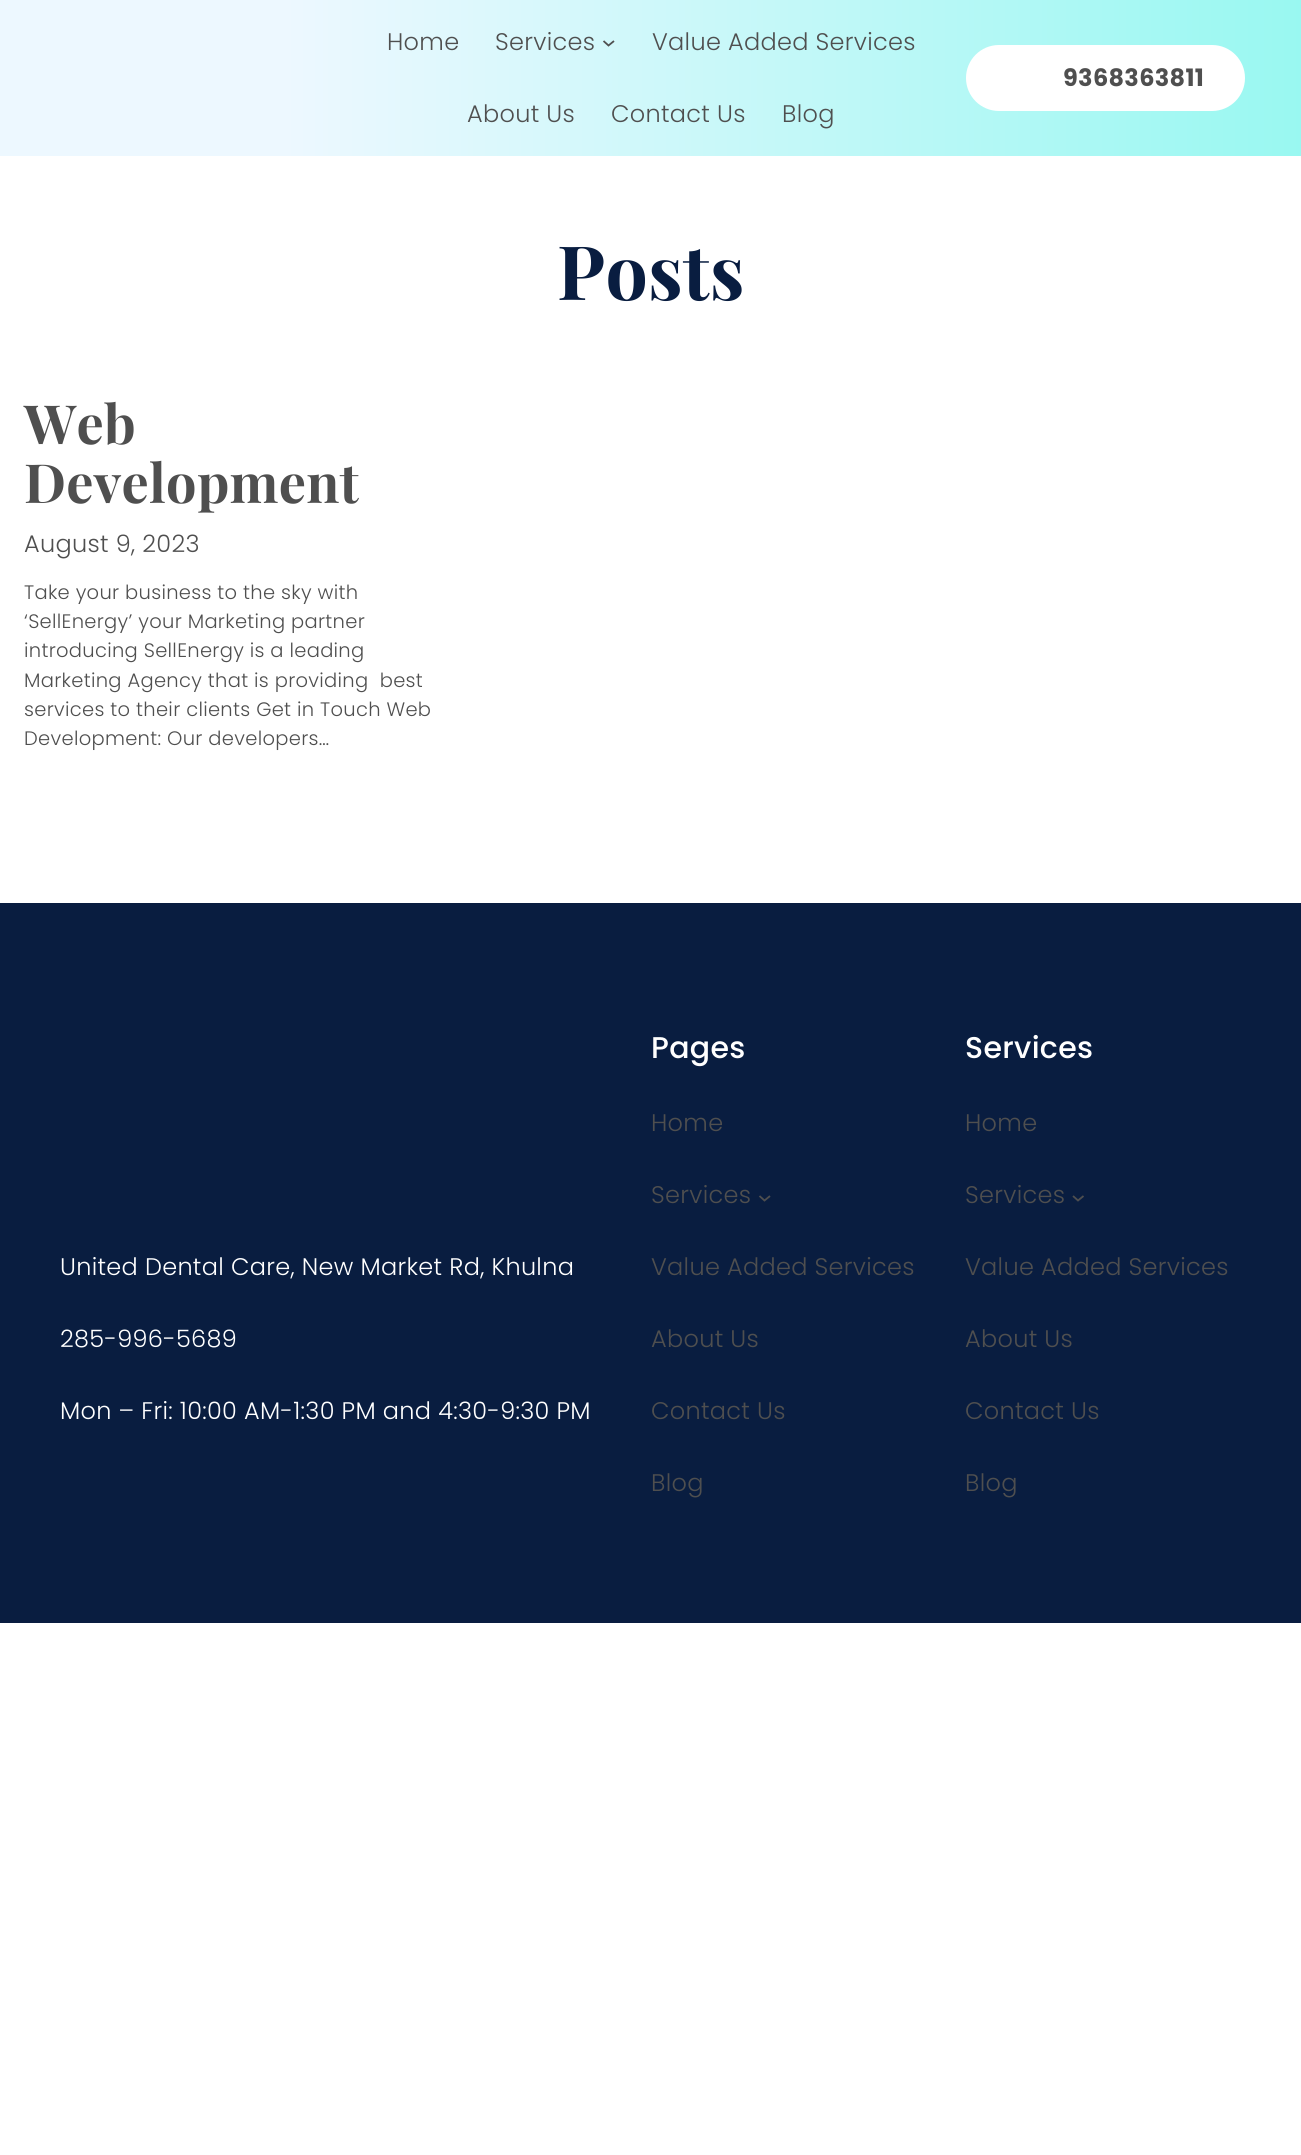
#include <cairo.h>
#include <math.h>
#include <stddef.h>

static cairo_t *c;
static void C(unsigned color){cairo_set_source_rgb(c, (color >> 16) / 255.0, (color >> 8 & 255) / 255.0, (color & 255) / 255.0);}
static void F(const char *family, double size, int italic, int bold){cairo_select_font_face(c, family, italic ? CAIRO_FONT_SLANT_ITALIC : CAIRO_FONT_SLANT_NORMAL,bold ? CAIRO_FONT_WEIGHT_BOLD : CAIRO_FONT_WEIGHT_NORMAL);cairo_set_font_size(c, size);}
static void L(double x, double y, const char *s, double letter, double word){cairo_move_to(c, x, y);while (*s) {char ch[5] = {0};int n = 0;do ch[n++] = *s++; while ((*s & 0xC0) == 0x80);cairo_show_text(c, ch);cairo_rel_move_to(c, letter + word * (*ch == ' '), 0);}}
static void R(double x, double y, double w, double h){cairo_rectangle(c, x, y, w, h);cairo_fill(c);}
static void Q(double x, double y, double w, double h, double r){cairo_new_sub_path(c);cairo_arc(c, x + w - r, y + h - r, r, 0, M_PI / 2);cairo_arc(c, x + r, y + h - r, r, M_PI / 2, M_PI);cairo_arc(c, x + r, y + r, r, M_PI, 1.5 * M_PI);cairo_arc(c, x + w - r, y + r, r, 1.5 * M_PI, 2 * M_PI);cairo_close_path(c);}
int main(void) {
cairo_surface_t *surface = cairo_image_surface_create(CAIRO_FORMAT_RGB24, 1301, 2155);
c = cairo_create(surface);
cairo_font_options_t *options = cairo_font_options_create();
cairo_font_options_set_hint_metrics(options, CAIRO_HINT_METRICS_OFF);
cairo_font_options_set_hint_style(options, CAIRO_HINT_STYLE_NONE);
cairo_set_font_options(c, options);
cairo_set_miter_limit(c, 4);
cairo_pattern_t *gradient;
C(0xffffff);
cairo_paint(c);
gradient = cairo_pattern_create_linear(0,78,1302,78);
cairo_pattern_add_color_stop_rgba(gradient,.22,0.929,0.973,1,1);
cairo_pattern_add_color_stop_rgba(gradient,1,0.6,0.973,0.945,1);
cairo_set_source(c,gradient);
cairo_pattern_destroy(gradient);
R(0,0,1301,156);
F("Poppins Light",24,0,0);
C(0x4f4f4f);
L(387,50,"Home",.3,0);
L(495,50,"Services",.3,0);
cairo_new_path(c);
cairo_move_to(c,603.5,41);
cairo_line_to(c,608.5,45.5);
cairo_line_to(c,614,41);
cairo_set_line_width(c,1.8);
cairo_stroke(c);
L(652,50,"Value Added Services",.3,0);
L(467,122,"About Us",.3,0);
L(611,122,"Contact Us",.3,0);
L(782,122,"Blog",.3,0);
C(0xffffff);
Q(966,45,279,66,33);
cairo_fill(c);
F("Poppins",24,0,1);
C(0x4f4f4f);
L(1063,86,"9368363811",.3,0);
F("Playfair Display",75,0,1);
C(0x091d40);
L(557,300,"Posts",.3,0);
F("Playfair Display",54,0,1);
C(0x4f4f4f);
L(24,444,"Web",.3,0);
L(24,503,"Development",.3,0);
F("Poppins Light",24,0,0);
L(24,552,"August 9, 2023",.3,0);
F("Poppins Light",19.5,0,0);
L(24,599,"Take your business to the sky with",.3,0);
L(24,628,"‘SellEnergy’ your Marketing partner",.3,0);
L(24,657,"introducing SellEnergy is a leading",.3,0);
L(24,687,"Marketing Agency that is providing  best",.3,0);
L(24,716,"services to their clients Get in Touch Web",.3,0);
L(24,745,"Development: Our developers…",.3,0);
C(0x091d40);
R(0,903,1301,720);
F("Poppins Light",24,0,0);
C(0xffffff);
L(60,1275,"United Dental Care, New Market Rd, Khulna",.3,0);
L(60,1347,"285-996-5689",.3,0);
L(60,1419,"Mon – Fri: 10:00 AM-1:30 PM and 4:30-9:30 PM",.3,0);
F("Poppins Medium",30,0,0);
L(651,1058,"Pages",.3,0);
F("Poppins Light",24,0,0);
C(0x4f4f4f);
L(651,1131,"Home",.3,0);
L(651,1203,"Services",.3,0);
cairo_new_path(c);
cairo_move_to(c,759.5,1196);
cairo_line_to(c,764.5,1200.5);
cairo_line_to(c,770,1196);
cairo_stroke(c);
L(651,1275,"Value Added Services",.3,0);
L(651,1347,"About Us",.3,0);
L(651,1419,"Contact Us",.3,0);
L(651,1491,"Blog",.3,0);
F("Poppins Medium",30,0,0);
C(0xffffff);
L(965,1058,"Services",.3,0);
F("Poppins Light",24,0,0);
C(0x4f4f4f);
L(965,1131,"Home",.3,0);
L(965,1203,"Services",.3,0);
cairo_new_path(c);
cairo_move_to(c,1073,1196);
cairo_line_to(c,1078,1200.5);
cairo_line_to(c,1083.5,1196);
cairo_stroke(c);
L(965,1275,"Value Added Services",.3,0);
L(965,1347,"About Us",.3,0);
L(965,1419,"Contact Us",.3,0);
L(965,1491,"Blog",.3,0);
cairo_surface_write_to_png(surface, "o.png");
cairo_font_options_destroy(options);
cairo_destroy(c);
cairo_surface_destroy(surface);
return 0;
}
